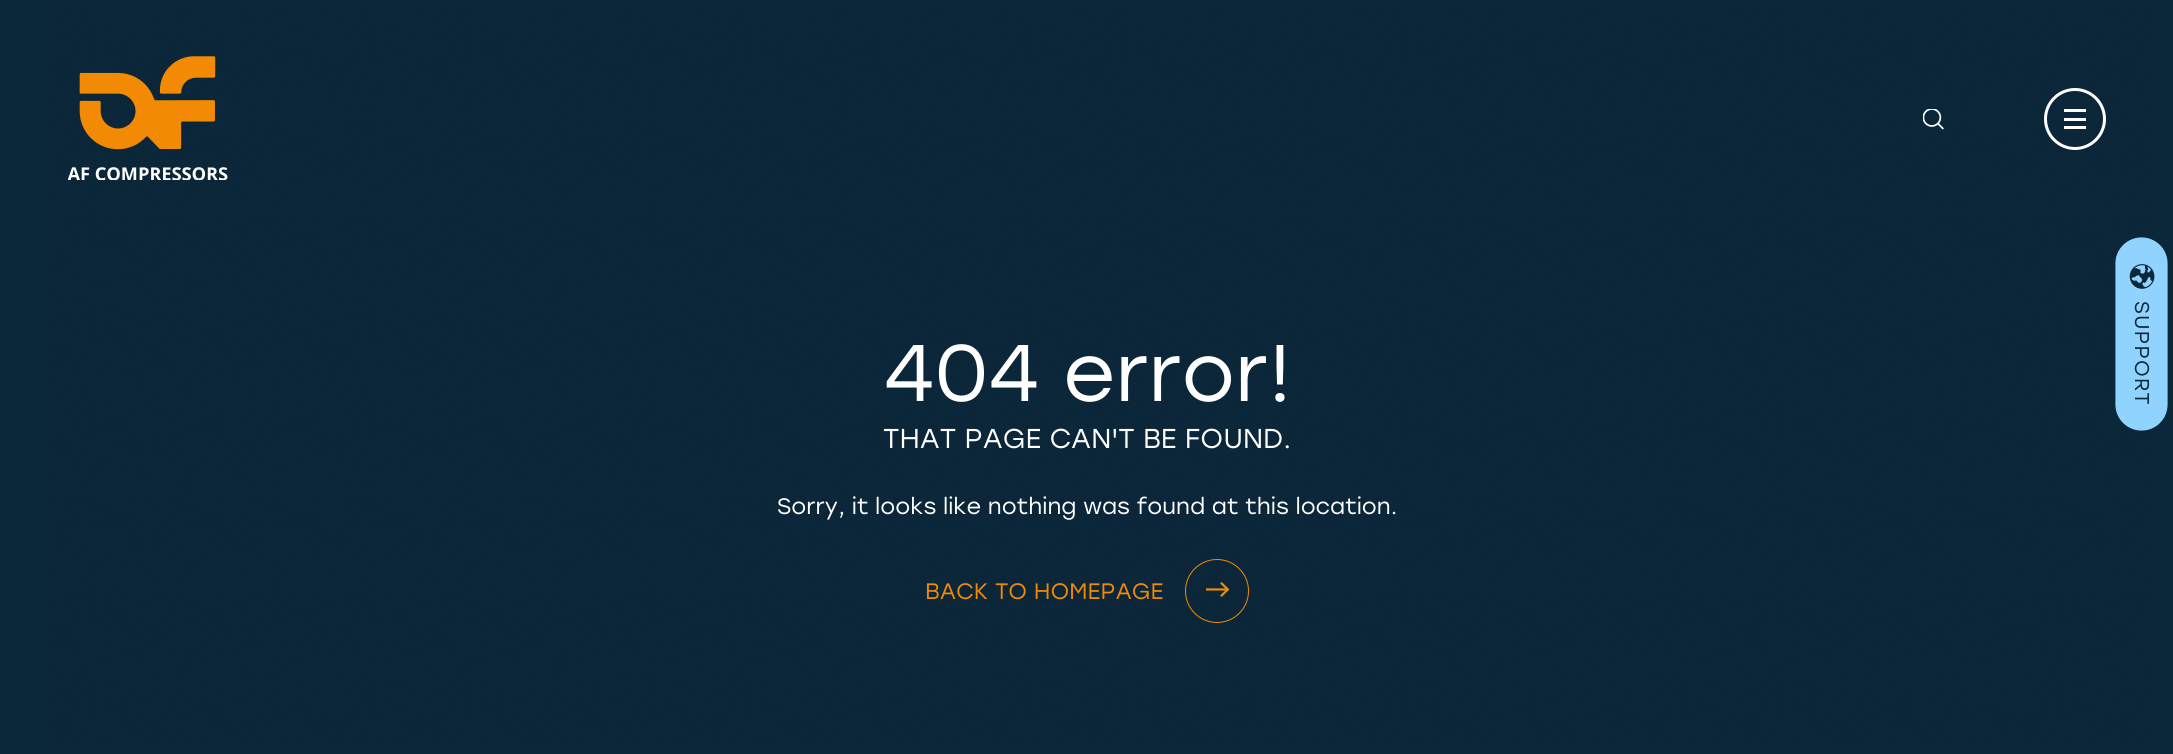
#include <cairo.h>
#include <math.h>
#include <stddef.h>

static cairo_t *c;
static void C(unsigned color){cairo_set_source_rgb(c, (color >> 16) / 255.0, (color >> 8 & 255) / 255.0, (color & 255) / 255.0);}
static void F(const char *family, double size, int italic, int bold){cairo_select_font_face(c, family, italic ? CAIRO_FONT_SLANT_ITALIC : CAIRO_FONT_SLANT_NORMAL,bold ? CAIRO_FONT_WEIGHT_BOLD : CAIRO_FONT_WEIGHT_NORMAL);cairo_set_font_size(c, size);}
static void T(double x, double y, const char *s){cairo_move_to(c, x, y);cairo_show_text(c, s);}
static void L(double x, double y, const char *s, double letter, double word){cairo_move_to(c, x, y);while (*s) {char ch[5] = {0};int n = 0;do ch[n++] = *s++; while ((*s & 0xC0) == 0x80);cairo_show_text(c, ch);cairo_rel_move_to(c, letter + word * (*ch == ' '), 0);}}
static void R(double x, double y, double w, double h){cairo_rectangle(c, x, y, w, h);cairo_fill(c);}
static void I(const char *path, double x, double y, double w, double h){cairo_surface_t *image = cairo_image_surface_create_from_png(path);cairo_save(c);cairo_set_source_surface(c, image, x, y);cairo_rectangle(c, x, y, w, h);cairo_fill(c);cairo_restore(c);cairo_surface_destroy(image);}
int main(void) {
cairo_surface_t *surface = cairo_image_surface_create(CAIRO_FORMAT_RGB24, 2173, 754);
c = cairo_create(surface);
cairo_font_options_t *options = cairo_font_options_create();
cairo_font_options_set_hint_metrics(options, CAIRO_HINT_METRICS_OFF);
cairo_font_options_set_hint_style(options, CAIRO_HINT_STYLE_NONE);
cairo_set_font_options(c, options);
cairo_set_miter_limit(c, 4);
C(0x0b283b);
cairo_paint(c);
I("1.png",47,4,2107,744);
F("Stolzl",80,0,0);
C(0xffffff);
T(884,401,"404 error!");
F("Stolzl",27.25,0,0);
T(883,448,"THAT PAGE CAN'T BE FOUND.");
F("Stolzl",22.35,0,0);
T(777,514,"Sorry, it looks like nothing was found at this location.");
C(0xf28a04);
T(925,599,"BACK TO HOMEPAGE");
cairo_new_path(c);
cairo_arc(c,1217,591,31.5,0,2 * M_PI);
cairo_set_line_width(c,1);
cairo_stroke(c);
F("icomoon",15,0,0);
T(1206,596,">");
I("2.png",68,56,160,124);
I("3.png",1923,109,21,21);
cairo_arc(c,2075,119,29.5,0,2 * M_PI);
C(0xffffff);
cairo_set_line_width(c,3);
cairo_stroke(c);
R(2064,118,22,3);
R(2064,109,22,3);
R(2064,126,22,3);
C(0x91d3ff);
cairo_new_path(c);
cairo_move_to(c,2167,263);
cairo_line_to(c,2167,405);
cairo_curve_to(c,2167,419,2156,430,2142,430);
cairo_curve_to(c,2127,430,2116,419,2116,405);
cairo_line_to(c,2116,263);
cairo_curve_to(c,2116,249,2127,238,2142,238);
cairo_curve_to(c,2156,238,2167,249,2167,263);
cairo_close_path(c);
cairo_fill(c);
cairo_new_path(c);
cairo_move_to(c,2167,263.5);
cairo_line_to(c,2167,404.5);
cairo_curve_to(c,2167,418.5,2155.5,430,2141.5,430);
cairo_curve_to(c,2127.5,430,2116,418.5,2116,404.5);
cairo_line_to(c,2116,263.5);
cairo_curve_to(c,2116,249.5,2127.5,238,2141.5,238);
cairo_curve_to(c,2155.5,238,2167,249.5,2167,263.5);
cairo_close_path(c);
cairo_set_line_width(c,1.2);
cairo_stroke(c);
I("4.png",2129,264,26,25);
F("Stolzl",20,0,0);
C(0x0b283b);
cairo_save(c);
cairo_translate(c,2135,301);
cairo_rotate(c,90 * M_PI / 180);
L(0,0,"SUPPORT",1.25,0);
cairo_restore(c);
cairo_surface_write_to_png(surface, "o.png");
cairo_font_options_destroy(options);
cairo_destroy(c);
cairo_surface_destroy(surface);
return 0;
}
